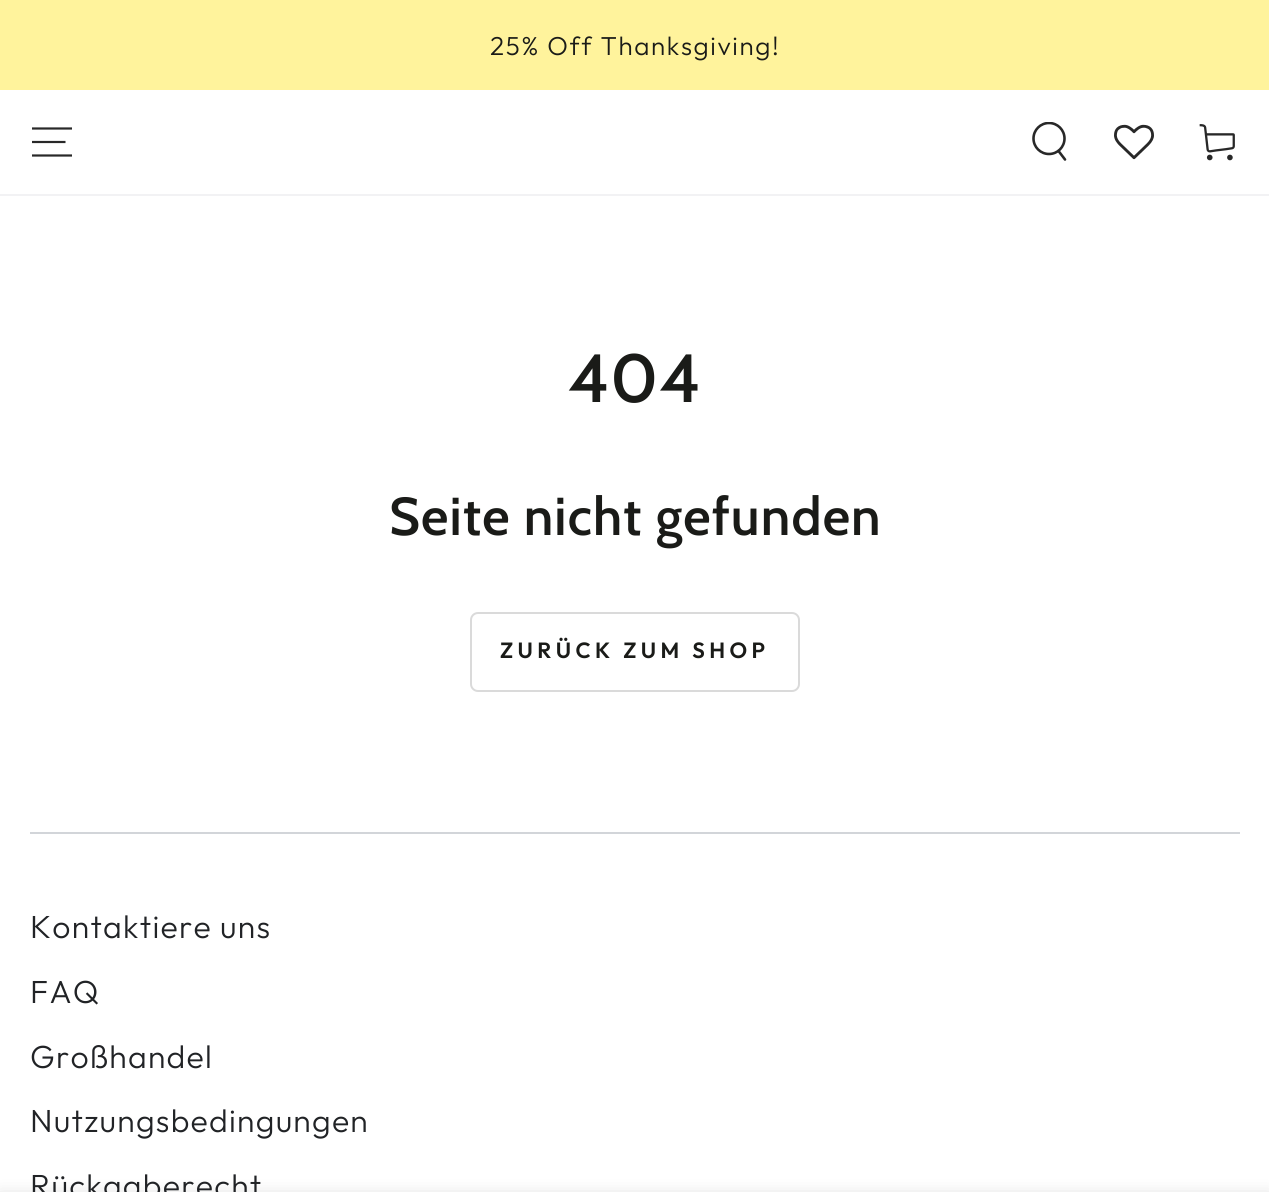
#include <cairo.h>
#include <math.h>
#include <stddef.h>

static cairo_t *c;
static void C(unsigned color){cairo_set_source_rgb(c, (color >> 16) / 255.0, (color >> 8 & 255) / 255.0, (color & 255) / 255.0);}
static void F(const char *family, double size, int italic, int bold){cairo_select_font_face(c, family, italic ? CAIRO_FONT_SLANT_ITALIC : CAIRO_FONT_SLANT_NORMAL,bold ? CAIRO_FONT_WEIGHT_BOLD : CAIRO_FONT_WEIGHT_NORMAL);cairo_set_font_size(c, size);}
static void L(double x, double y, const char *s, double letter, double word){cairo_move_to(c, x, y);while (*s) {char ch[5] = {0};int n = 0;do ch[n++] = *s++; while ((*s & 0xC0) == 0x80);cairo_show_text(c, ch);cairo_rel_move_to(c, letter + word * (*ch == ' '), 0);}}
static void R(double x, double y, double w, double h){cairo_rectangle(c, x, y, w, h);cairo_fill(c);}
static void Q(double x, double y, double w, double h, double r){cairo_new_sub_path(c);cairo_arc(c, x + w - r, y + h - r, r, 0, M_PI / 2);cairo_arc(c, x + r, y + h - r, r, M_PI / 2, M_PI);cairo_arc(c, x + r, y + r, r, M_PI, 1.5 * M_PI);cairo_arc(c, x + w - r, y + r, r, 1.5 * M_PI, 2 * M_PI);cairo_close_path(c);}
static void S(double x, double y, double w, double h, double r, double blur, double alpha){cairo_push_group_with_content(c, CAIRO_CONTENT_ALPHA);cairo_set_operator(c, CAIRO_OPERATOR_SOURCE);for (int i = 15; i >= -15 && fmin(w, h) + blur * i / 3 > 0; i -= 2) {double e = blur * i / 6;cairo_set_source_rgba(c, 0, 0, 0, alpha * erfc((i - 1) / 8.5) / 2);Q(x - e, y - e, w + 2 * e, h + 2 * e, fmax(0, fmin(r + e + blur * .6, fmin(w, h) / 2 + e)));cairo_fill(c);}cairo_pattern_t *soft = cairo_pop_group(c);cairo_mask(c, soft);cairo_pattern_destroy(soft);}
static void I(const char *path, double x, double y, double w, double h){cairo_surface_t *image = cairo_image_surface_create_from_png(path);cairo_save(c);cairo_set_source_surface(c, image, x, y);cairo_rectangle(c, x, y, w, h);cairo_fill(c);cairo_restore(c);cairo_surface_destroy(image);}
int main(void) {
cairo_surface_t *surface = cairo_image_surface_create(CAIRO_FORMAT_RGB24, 1269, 1192);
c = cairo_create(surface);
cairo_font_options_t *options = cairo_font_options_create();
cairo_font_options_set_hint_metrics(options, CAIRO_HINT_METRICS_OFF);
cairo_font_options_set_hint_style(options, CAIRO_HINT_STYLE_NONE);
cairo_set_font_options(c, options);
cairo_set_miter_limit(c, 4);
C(0xffffff);
cairo_paint(c);
C(0xfff39c);
R(0,0,1269,90);
F("Outfit Light",26,0,0);
C(0x1a1b18);
L(490,55,"25% Off Thanksgiving!",1.6,0);
C(0xf2f2f4);
R(0,194,1269,2);
cairo_new_path(c);
cairo_move_to(c,32,155.5);
cairo_line_to(c,72,155.5);
cairo_move_to(c,32,142);
cairo_line_to(c,65.5,142);
cairo_move_to(c,32,128.5);
cairo_line_to(c,72,128.5);
C(0x282828);
cairo_set_line_width(c,2.2);
cairo_stroke(c);
cairo_save(c);
cairo_rectangle(c,1030,122,40,40);
cairo_clip(c);
cairo_arc(c,1049,138.5,15.5,0,2 * M_PI);
cairo_set_line_width(c,2.6);
cairo_stroke(c);
cairo_restore(c);
cairo_new_path(c);
cairo_move_to(c,1058.5,151);
cairo_line_to(c,1065,159.5);
cairo_set_line_width(c,2.6);
cairo_set_line_cap(c,CAIRO_LINE_CAP_ROUND);
cairo_stroke(c);
I("1.png",1114,124,40,36);
I("2.png",1199,124,36,37);
F("Cabin SemiBold",68,0,0);
C(0x1a1b18);
L(568,402,"404",1.1,0);
F("Cabin SemiBold",53.25,0,0);
L(389,535,"Seite nicht gefunden",1.1,0);
Q(471,613,328,78,7);
C(0xdadada);
cairo_set_line_width(c,2);
cairo_set_line_cap(c,CAIRO_LINE_CAP_BUTT);
cairo_stroke(c);
F("Outfit SemiBold",22,0,0);
C(0x1a1b18);
L(500,658,"ZURÜCK ZUM SHOP",4.4,0);
C(0xd2d5d9);
R(30,832,1210,2);
F("Outfit Light",32,0,0);
C(0x212326);
L(30,938,"Kontaktiere uns",1.25,0);
L(30,1003,"FAQ",1.25,0);
L(30,1068,"Großhandel",1.25,0);
L(30,1132,"Nutzungsbedingungen",1.25,0);
L(30,1197,"Rückgaberecht",1.25,0);
C(0x212326);
S(0,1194,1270,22,0,8,.15);
cairo_surface_write_to_png(surface, "o.png");
cairo_font_options_destroy(options);
cairo_destroy(c);
cairo_surface_destroy(surface);
return 0;
}
